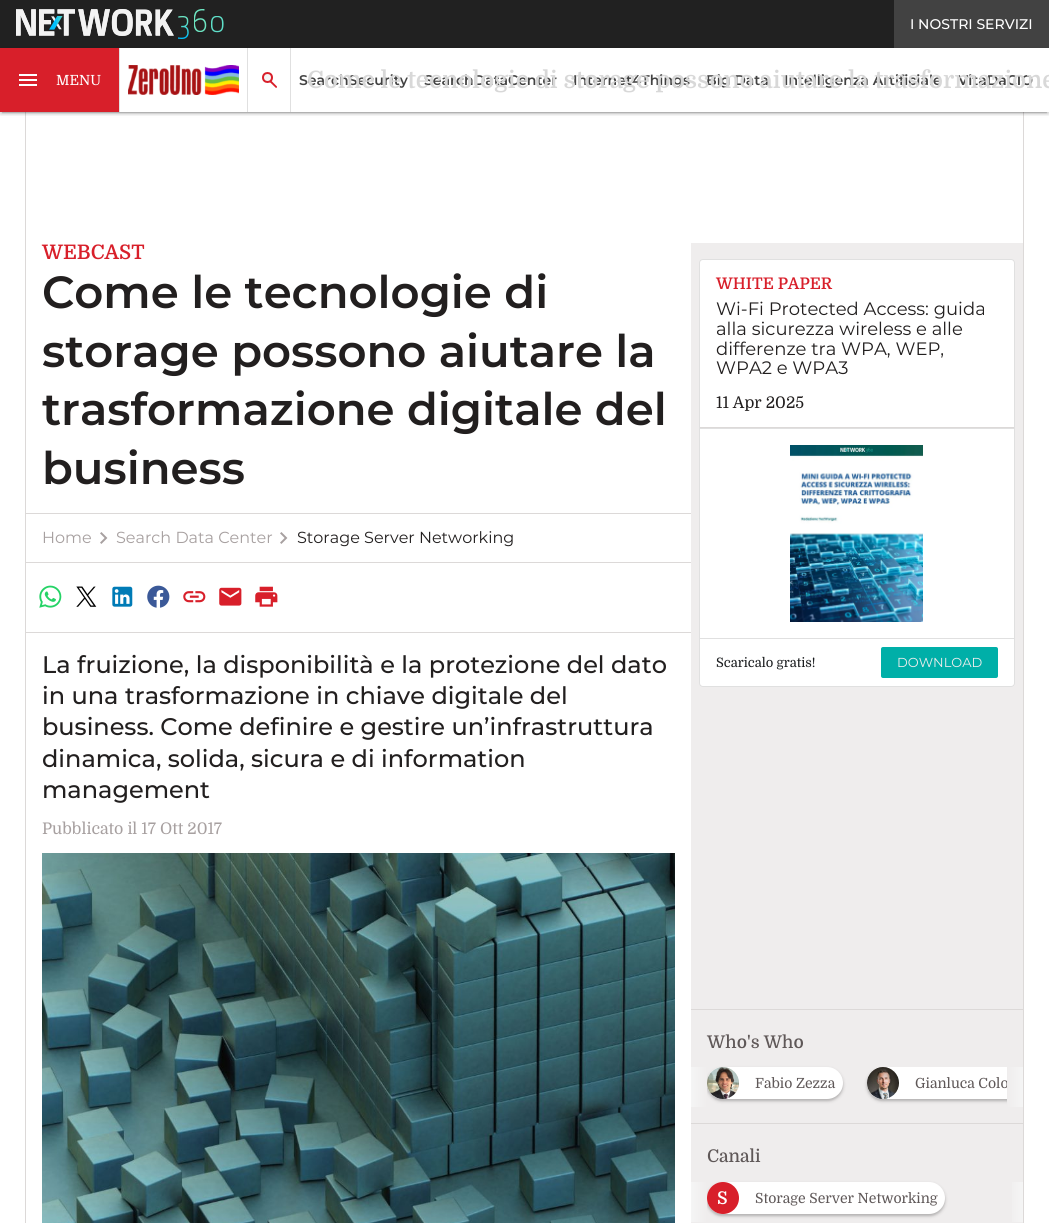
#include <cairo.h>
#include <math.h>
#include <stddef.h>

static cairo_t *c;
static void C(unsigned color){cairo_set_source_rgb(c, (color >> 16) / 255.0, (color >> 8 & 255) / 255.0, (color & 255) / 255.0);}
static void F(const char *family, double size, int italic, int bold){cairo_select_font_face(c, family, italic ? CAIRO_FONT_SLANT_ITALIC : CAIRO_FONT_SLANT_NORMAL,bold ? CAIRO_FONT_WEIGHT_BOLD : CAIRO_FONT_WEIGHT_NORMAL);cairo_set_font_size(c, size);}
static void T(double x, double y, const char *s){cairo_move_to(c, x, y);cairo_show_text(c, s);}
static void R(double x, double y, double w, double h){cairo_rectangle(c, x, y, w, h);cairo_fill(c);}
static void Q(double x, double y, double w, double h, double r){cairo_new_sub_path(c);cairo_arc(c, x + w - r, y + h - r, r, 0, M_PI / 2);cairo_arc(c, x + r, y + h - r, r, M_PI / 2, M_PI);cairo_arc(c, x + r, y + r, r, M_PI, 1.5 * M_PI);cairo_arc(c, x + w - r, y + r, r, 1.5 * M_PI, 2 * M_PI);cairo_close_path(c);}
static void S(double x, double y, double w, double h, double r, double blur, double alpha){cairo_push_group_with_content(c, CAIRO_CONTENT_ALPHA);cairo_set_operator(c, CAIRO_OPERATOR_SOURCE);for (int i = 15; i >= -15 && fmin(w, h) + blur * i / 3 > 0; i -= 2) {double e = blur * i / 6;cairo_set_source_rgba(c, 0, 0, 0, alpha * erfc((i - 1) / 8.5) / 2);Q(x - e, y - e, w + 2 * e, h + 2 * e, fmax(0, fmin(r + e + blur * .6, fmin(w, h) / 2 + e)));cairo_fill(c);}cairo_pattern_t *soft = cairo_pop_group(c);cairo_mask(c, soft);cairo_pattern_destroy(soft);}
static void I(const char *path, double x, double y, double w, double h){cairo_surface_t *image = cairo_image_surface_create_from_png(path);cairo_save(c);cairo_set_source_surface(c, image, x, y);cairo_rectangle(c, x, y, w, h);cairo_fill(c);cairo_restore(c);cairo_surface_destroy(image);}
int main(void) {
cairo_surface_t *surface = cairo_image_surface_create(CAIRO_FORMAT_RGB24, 1049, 1223);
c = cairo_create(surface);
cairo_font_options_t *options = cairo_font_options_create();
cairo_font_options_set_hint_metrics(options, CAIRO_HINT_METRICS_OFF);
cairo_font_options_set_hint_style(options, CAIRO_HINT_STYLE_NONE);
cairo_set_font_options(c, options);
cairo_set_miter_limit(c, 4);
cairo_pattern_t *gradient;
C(0xffffff);
cairo_paint(c);
C(0xdcd9d8);
R(26,513,665,1);
I("4.png",100,532,8,12);
I("4.png",280,532,8,12);
R(26,562,665,1);
R(26,632,665,1);
I("5.png",39,585,23,23);
I("6.png",76,586,21,21);
I("7.png",112,586,21,21);
I("8.png",147,585,23,23);
I("9.png",183,591,23,12);
I("10.png",219,587,23,19);
I("11.png",255,586,23,21);
C(0xefeded);
R(691,243,332,980);
C(0xdcd9d8);
R(691,1009,332,1);
R(691,1123,332,1);
cairo_rectangle(c,25.5,.5,998,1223);
cairo_set_line_width(c,1);
cairo_stroke(c);
C(0x212121);
R(0,0,894,48);
I("1.png",16,9,208,30);
C(0x424242);
R(894,0,155,48);
F("Montserrat Medium",14,0,0);
C(0xffffff);
T(910,29,"I NOSTRI SERVIZI");
R(1023,48,1,64);
cairo_save(c);
cairo_rectangle(c,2,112,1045,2);
cairo_clip(c);
C(0x000000);
S(2,53,1045,60,0,.5,.2);
cairo_restore(c);
cairo_save(c);
cairo_set_fill_rule(c,CAIRO_FILL_RULE_EVEN_ODD);
cairo_new_path(c);
cairo_move_to(c,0,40);
cairo_line_to(c,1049,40);
cairo_line_to(c,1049,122);
cairo_line_to(c,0,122);
cairo_close_path(c);
cairo_move_to(c,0,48);
cairo_line_to(c,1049,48);
cairo_line_to(c,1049,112);
cairo_line_to(c,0,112);
cairo_close_path(c);
cairo_clip(c);
C(0x000000);
S(0,49,1049,64,0,2.5,.12);
cairo_restore(c);
cairo_save(c);
cairo_rectangle(c,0,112,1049,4);
cairo_clip(c);
C(0x000000);
S(0,50,1049,64,0,2,.14);
cairo_restore(c);
C(0xd81f2a);
R(0,48,119,64);
C(0xe0e0e0);
R(119,48,1,64);
I("2.png",19,74,18,12);
F("Domine",14,0,0);
C(0xffffff);
T(56,85,"MENU");
I("3.png",128,65,111,30);
C(0xe0e0e0);
R(290,48,1,64);
R(247,48,1,64);
C(0xd81f2a);
cairo_new_path(c);
cairo_move_to(c,267,76.5);
cairo_line_to(c,277,86.5);
cairo_curve_to(c,277,87.5,276.5,88,276,88);
cairo_line_to(c,265.5,78);
cairo_curve_to(c,264.5,77,266,75.5,267,76.5);
cairo_close_path(c);
cairo_fill(c);
C(0xf5f5f5);
cairo_arc(c,267.5,77.5,4.5,0,2 * M_PI);
cairo_fill_preserve(c);
C(0xd81f2a);
cairo_set_line_width(c,2);
cairo_stroke(c);
F("Montserrat SemiBold",14,0,0);
C(0x424242);
T(299,85,"SearchSecurity");
T(424,85,"SearchDataCenter");
T(573,85,"Internet4Things");
T(706,85,"Big Data");
T(784,85,"Intelligenza Artificiale");
T(958,85,"VitaDaCIO");
F("Domine SemiBold",24,0,0);
C(0xd8d8d8);
T(307,88,"Come le tecnologie di storage possono aiutare la trasformazione");
F("Domine SemiBold",20,0,0);
C(0xd81f2a);
T(42,259,"WEBCAST");
F("Montserrat SemiBold",45,0,0);
C(0x221f1f);
T(42,308,"Come le tecnologie di");
T(42,367,"storage possono aiutare la");
T(42,425,"trasformazione digitale del");
T(42,484,"business");
F("Montserrat",16,0,0);
C(0xa7a0a0);
T(42,543,"Home");
T(116,543,"Search Data Center");
C(0x221f1f);
T(297,543,"Storage Server Networking");
F("Montserrat Medium",24,0,0);
T(42,673,"La fruizione, la disponibilità e la protezione del dato");
T(42,704,"in una trasformazione in chiave digitale del");
T(42,735,"business. Come definire e gestire un’infrastruttura");
T(42,767,"dinamica, solida, sicura e di information");
T(42,798,"management");
F("Domine",16,0,0);
C(0xa7a0a0);
T(42,834,"Pubblicato il 17 Ott 2017");
I("12.png",42,853,633,370);
Q(699.5,259.5,315,427,3.5);
C(0xe0e0e0);
cairo_set_line_width(c,1);
cairo_stroke(c);
R(700,428,314,1);
C(0xffffff);
cairo_new_path(c);
cairo_move_to(c,703,260);
cairo_line_to(c,1011,260);
cairo_curve_to(c,1012.5,260,1014,261.5,1014,263);
cairo_line_to(c,1014,428);
cairo_line_to(c,700,428);
cairo_line_to(c,700,263);
cairo_curve_to(c,700,261.5,701.5,260,703,260);
cairo_close_path(c);
cairo_fill(c);
C(0xdcd9d8);
R(700,427,314,1);
F("Domine SemiBold",16,0,0);
C(0xd81f2a);
T(716,289,"WHITE PAPER");
F("Montserrat",18,0,0);
C(0x221f1f);
T(716,315,"Wi-Fi Protected Access: guida");
T(716,335,"alla sicurezza wireless e alle");
T(716,355,"differenze tra WPA, WEP,");
T(716,374,"WPA2 e WPA3");
F("Domine",16,0,0);
T(716,408,"11 Apr 2025");
C(0xffffff);
R(700,429,314,209);
C(0xe0e0e0);
R(700,638,314,1);
I("13.png",790,445,133,177);
C(0xffffff);
cairo_new_path(c);
cairo_move_to(c,700,639);
cairo_line_to(c,1014,639);
cairo_line_to(c,1014,683);
cairo_curve_to(c,1014,684.5,1012.5,686,1011,686);
cairo_line_to(c,703,686);
cairo_curve_to(c,701.5,686,700,684.5,700,683);
cairo_close_path(c);
cairo_fill(c);
F("Domine",13,0,0);
C(0x1a1c1e);
T(716,667,"Scaricalo gratis!");
C(0x00afa8);
Q(881,647,117,31,2);
cairo_fill(c);
F("Montserrat",13,0,0);
C(0xefeded);
T(897,667,"DOWNLOAD");
F("Domine Medium",17.5,0,0);
C(0x5f5858);
T(707,1048,"Who's Who");
C(0x000000);
S(707,1069,136,32,16,1,.12);
S(707,1069,136,32,16,2,.16);
gradient = cairo_pattern_create_linear(691,1087,707,1087);
cairo_pattern_add_color_stop_rgba(gradient,0,0.961,0.961,0.961,1);
cairo_pattern_add_color_stop_rgba(gradient,1,0.937,0.929,0.929,1);
cairo_set_source(c,gradient);
cairo_pattern_destroy(gradient);
R(691,1067,16,40);
C(0xffffff);
Q(707,1067,136,32,16);
cairo_fill(c);
cairo_arc(c,723,1083,16,0,2 * M_PI);
cairo_fill(c);
I("14.png",707,1067,32,32);
F("Domine",14,0,0);
C(0x5f5858);
T(755,1088,"Fabio Zezza");
cairo_save(c);
cairo_rectangle(c,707,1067,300,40);
cairo_clip(c);
C(0x000000);
S(867,1069,180,32,16,1,.12);
S(867,1069,180,32,16,2,.16);
cairo_restore(c);
C(0xffffff);
cairo_new_path(c);
cairo_move_to(c,883,1067);
cairo_line_to(c,1007,1067);
cairo_line_to(c,1007,1099);
cairo_line_to(c,883,1099);
cairo_curve_to(c,874,1099,867,1092,867,1083);
cairo_curve_to(c,867,1074,874,1067,883,1067);
cairo_close_path(c);
cairo_fill(c);
cairo_arc(c,883,1083,16,0,2 * M_PI);
cairo_fill(c);
I("15.png",867,1067,32,32);
C(0x5f5858);
T(915,1088,"Gianluca Colo");
gradient = cairo_pattern_create_linear(1023,1087,1007,1087);
cairo_pattern_add_color_stop_rgba(gradient,0,0.961,0.961,0.961,1);
cairo_pattern_add_color_stop_rgba(gradient,1,0.937,0.929,0.929,1);
cairo_set_source(c,gradient);
cairo_pattern_destroy(gradient);
R(1007,1067,16,40);
F("Domine Medium",17.5,0,0);
C(0x5f5858);
T(707,1162,"Canali");
C(0x000000);
S(707,1184,238,32,16,1,.12);
S(707,1184,238,32,16,2,.16);
gradient = cairo_pattern_create_linear(691,1202,707,1202);
cairo_pattern_add_color_stop_rgba(gradient,0,0.961,0.961,0.961,1);
cairo_pattern_add_color_stop_rgba(gradient,1,0.937,0.929,0.929,1);
cairo_set_source(c,gradient);
cairo_pattern_destroy(gradient);
R(691,1182,16,40);
C(0xffffff);
Q(707,1182,238,32,16);
cairo_fill(c);
C(0xd81f2a);
cairo_arc(c,723,1198,16,0,2 * M_PI);
cairo_fill(c);
F("Domine SemiBold",17.5,0,0);
C(0xffffff);
T(717,1204,"S");
F("Domine",14,0,0);
C(0x5f5858);
T(755,1203,"Storage Server Networking");
gradient = cairo_pattern_create_linear(1023,1202,1007,1202);
cairo_pattern_add_color_stop_rgba(gradient,0,0.961,0.961,0.961,1);
cairo_pattern_add_color_stop_rgba(gradient,1,0.937,0.929,0.929,1);
cairo_set_source(c,gradient);
cairo_pattern_destroy(gradient);
R(1012,1182,11,40);
cairo_surface_write_to_png(surface, "o.png");
cairo_font_options_destroy(options);
cairo_destroy(c);
cairo_surface_destroy(surface);
return 0;
}
